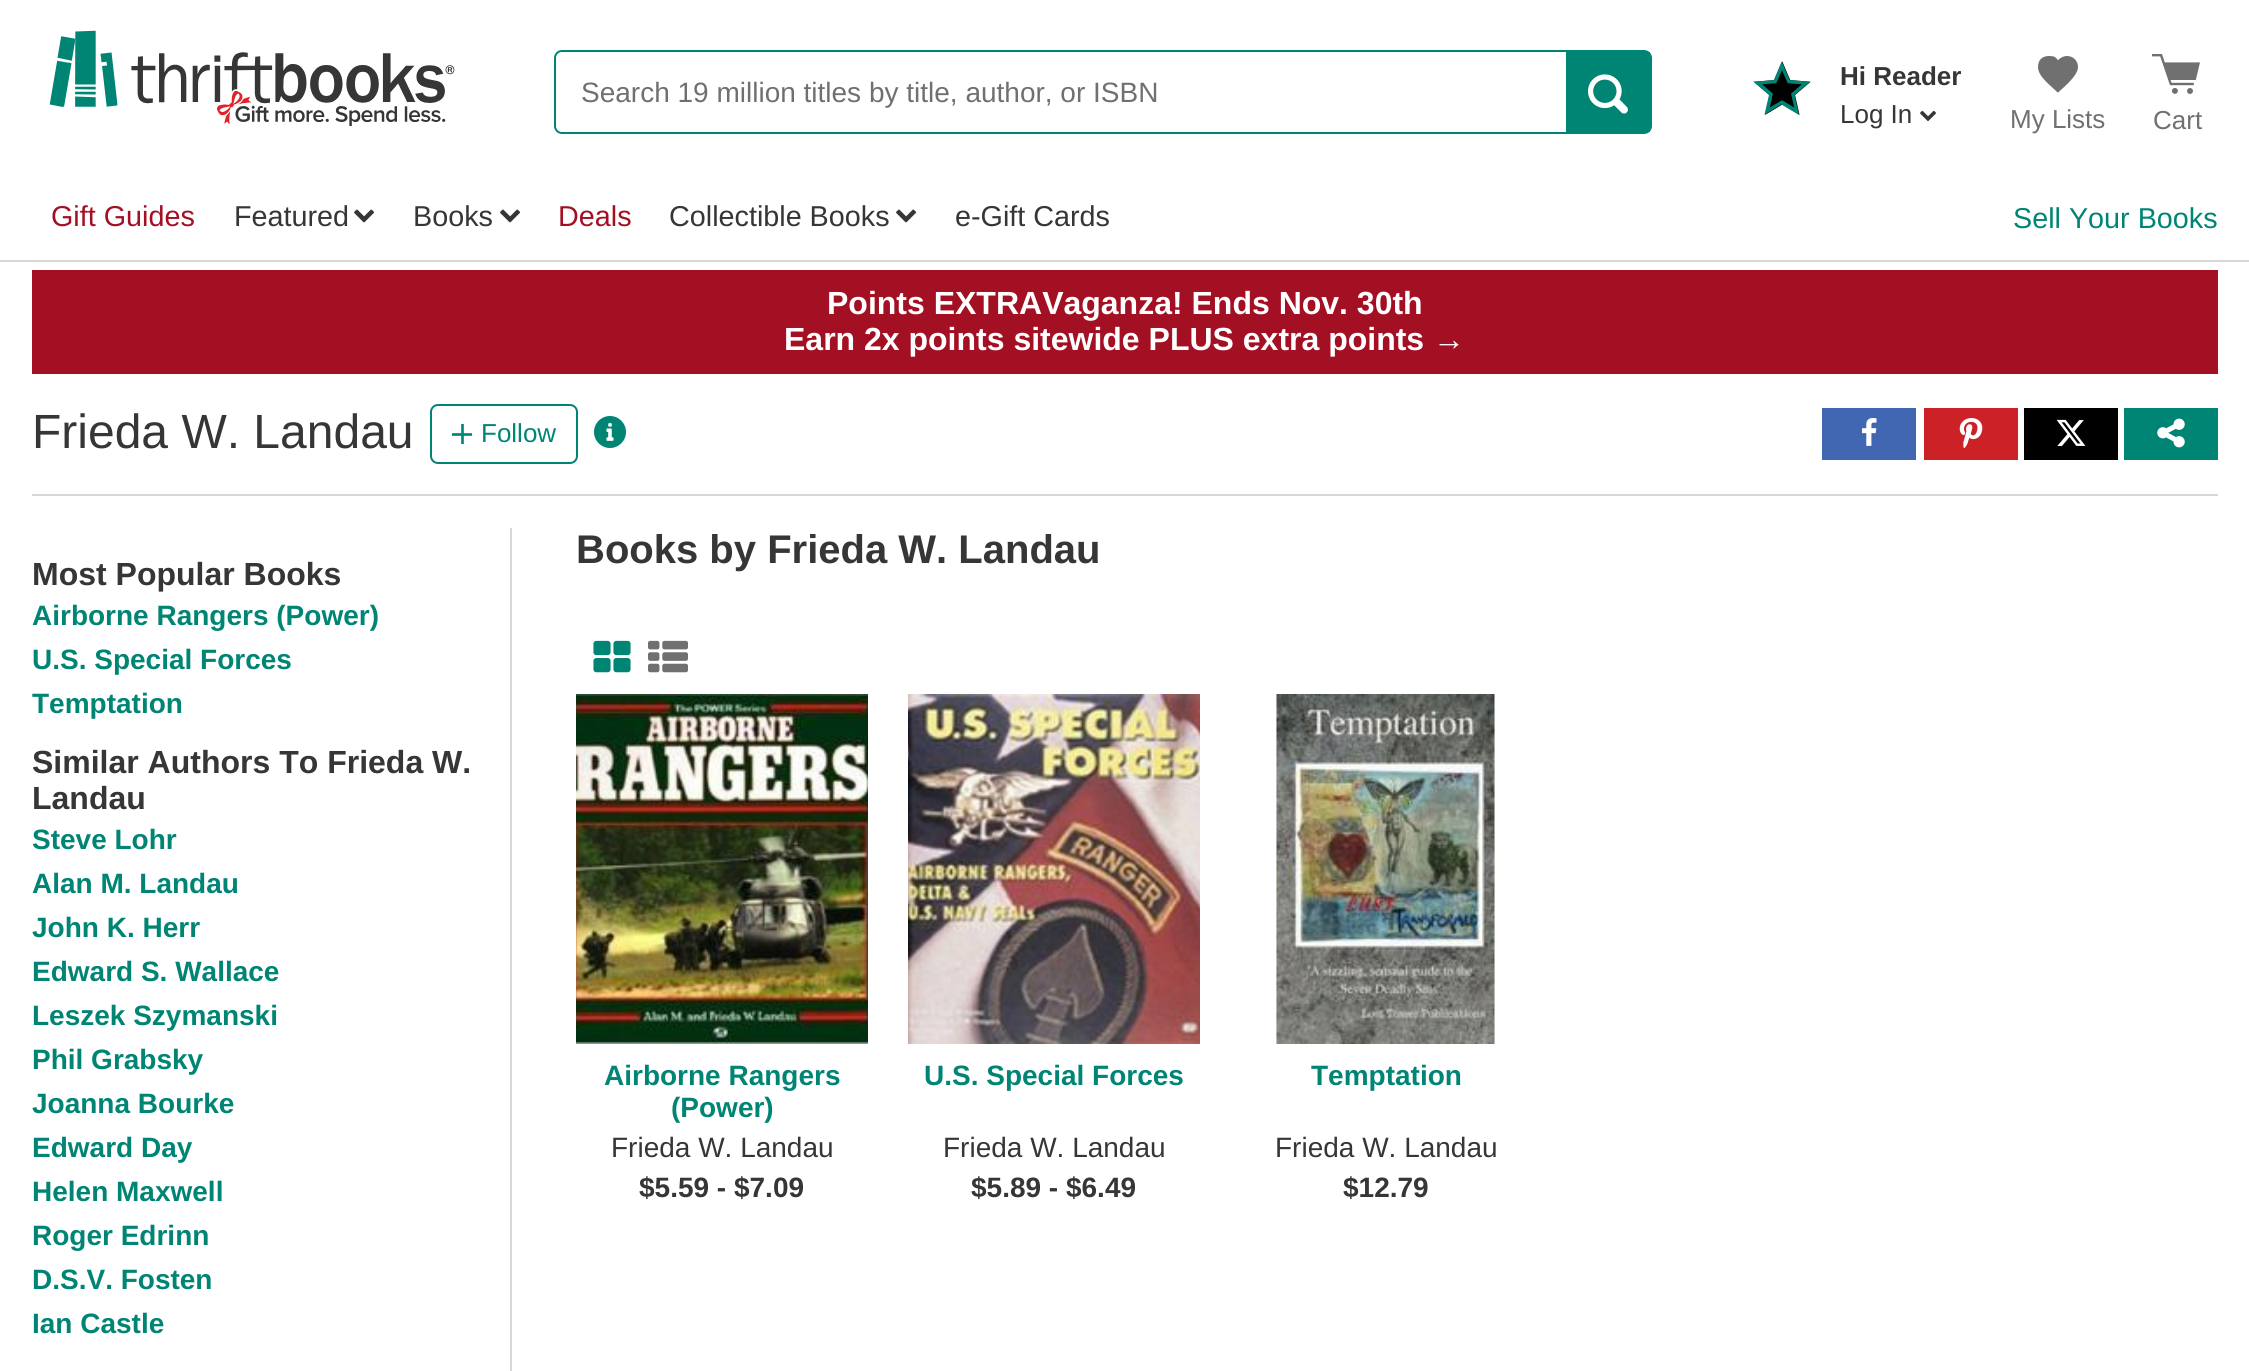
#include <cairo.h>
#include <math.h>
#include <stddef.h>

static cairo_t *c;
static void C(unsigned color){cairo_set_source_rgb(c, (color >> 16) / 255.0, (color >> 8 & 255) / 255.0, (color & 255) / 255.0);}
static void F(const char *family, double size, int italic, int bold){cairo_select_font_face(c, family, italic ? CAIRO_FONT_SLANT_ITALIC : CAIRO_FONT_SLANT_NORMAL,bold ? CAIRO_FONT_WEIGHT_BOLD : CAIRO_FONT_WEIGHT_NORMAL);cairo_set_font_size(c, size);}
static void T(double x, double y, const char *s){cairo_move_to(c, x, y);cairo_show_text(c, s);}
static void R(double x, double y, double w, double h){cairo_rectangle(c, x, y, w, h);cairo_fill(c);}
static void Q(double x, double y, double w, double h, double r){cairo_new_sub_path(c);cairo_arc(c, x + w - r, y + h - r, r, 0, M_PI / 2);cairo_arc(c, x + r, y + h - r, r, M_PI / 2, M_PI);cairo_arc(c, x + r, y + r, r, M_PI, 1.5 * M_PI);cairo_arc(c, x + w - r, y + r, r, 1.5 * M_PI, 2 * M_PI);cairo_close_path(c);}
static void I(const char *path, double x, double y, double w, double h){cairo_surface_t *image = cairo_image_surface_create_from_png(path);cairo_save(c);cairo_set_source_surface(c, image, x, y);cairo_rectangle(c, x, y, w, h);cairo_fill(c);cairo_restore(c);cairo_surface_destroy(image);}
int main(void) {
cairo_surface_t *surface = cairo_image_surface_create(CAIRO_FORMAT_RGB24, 2249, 1371);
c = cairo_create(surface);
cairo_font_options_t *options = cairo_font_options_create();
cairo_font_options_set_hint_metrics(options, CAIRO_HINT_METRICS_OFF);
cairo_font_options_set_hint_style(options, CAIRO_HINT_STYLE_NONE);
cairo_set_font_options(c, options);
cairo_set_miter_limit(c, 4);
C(0xffffff);
cairo_paint(c);
I("1.png",49,30,406,96);
Q(555,51,1096,82,7);
C(0x008575);
cairo_stroke(c);
C(0xffffff);
cairo_new_path(c);
cairo_move_to(c,564,52);
cairo_line_to(c,1566,52);
cairo_line_to(c,1566,132);
cairo_line_to(c,564,132);
cairo_curve_to(c,559.5,132,556,128.5,556,124);
cairo_line_to(c,556,60);
cairo_curve_to(c,556,55.5,559.5,52,564,52);
cairo_close_path(c);
cairo_fill(c);
F("Liberation Sans",28,0,0);
C(0x707070);
T(581,102,"Search 19 million titles by title, author, or ISBN");
C(0x008575);
R(1566,52,84,80);
I("2.png",1588,74,40,40);
I("3.png",1753,61,58,54);
F("Liberation Sans",26,0,1);
C(0x363636);
T(1840,85,"Hi Reader");
F("Liberation Sans",26,0,0);
T(1840,123,"Log In");
I("4.png",1920,110,16,11);
I("5.png",2038,56,40,37);
C(0x707070);
T(2010,128,"My Lists");
I("6.png",2152,54,48,40);
T(2153,129,"Cart");
C(0xd7d7d7);
R(0,260,2249,2);
F("Liberation Sans",28.75,0,0);
C(0xa31023);
T(51,226,"Gift Guides");
C(0x363636);
T(234,226,"Featured");
I("7.png",354,209,20,14);
T(413,226,"Books");
I("7.png",500,209,20,14);
C(0xa31023);
T(558,226,"Deals");
C(0x363636);
T(669,226,"Collectible Books");
I("7.png",896,209,20,14);
T(955,226,"e-Gift Cards");
C(0x008575);
T(2013,228,"Sell Your Books");
C(0xa31023);
R(32,270,2186,104);
F("Liberation Sans",32,0,1);
C(0xffffff);
T(827,314,"Points EXTRAVaganza! Ends Nov. 30th");
T(784,350,"Earn 2x points sitewide PLUS extra points →");
C(0xd7d7d7);
R(32,494,2186,2);
F("Liberation Sans",48,0,0);
C(0x363636);
T(32,448,"Frieda W. Landau");
Q(431,405,146,58,7);
C(0x008575);
cairo_stroke(c);
I("8.png",452,424,20,20);
F("Liberation Sans",26,0,0);
T(481,442,"Follow");
I("9.png",594,416,32,32);
C(0x4267b2);
R(1822,408,94,52);
I("10.png",1862,418,15,28);
C(0xcc2127);
R(1924,408,94,52);
I("11.png",1959,418,24,30);
C(0x000000);
R(2024,408,94,52);
I("12.png",2056,419,30,27);
C(0x008575);
R(2124,408,94,52);
I("13.png",2157,418,28,30);
C(0xd7d7d7);
R(510,528,2,843);
F("Liberation Sans",32,0,1);
C(0x363636);
T(32,585,"Most Popular Books");
F("Liberation Sans",28,0,1);
C(0x008575);
T(32,625,"Airborne Rangers (Power)");
T(32,669,"U.S. Special Forces");
T(32,713,"Temptation");
F("Liberation Sans",32,0,1);
C(0x363636);
T(32,773,"Similar Authors To Frieda W.");
T(32,809,"Landau");
F("Liberation Sans",28,0,1);
C(0x008575);
T(32,849,"Steve Lohr");
T(32,893,"Alan M. Landau");
T(32,937,"John K. Herr");
T(32,981,"Edward S. Wallace");
T(32,1025,"Leszek Szymanski");
T(32,1069,"Phil Grabsky");
T(32,1113,"Joanna Bourke");
T(32,1157,"Edward Day");
T(32,1201,"Helen Maxwell");
T(32,1245,"Roger Edrinn");
T(32,1289,"D.S.V. Fosten");
T(32,1333,"Ian Castle");
F("Liberation Sans",40,0,1);
C(0x363636);
T(576,563,"Books by Frieda W. Landau");
I("14.png",593,640,38,33);
I("15.png",648,640,40,33);
I("16.png",576,694,292,350);
F("Liberation Sans",28,0,1);
C(0x008575);
T(604,1085,"Airborne Rangers");
T(671,1117,"(Power)");
F("Liberation Sans",28,0,0);
C(0x363636);
T(611,1157,"Frieda W. Landau");
F("Liberation Sans",28,0,1);
T(639,1197,"$5.59 - $7.09");
I("17.png",908,694,292,350);
C(0x008575);
T(924,1085,"U.S. Special Forces");
F("Liberation Sans",28,0,0);
C(0x363636);
T(943,1157,"Frieda W. Landau");
F("Liberation Sans",28,0,1);
T(971,1197,"$5.89 - $6.49");
C(0xefefef);
R(1276,694,1,350);
I("18.png",1276,694,219,350);
C(0x008575);
T(1311,1085,"Temptation");
F("Liberation Sans",28,0,0);
C(0x363636);
T(1275,1157,"Frieda W. Landau");
F("Liberation Sans",28,0,1);
T(1343,1197,"$12.79");
cairo_surface_write_to_png(surface, "o.png");
cairo_font_options_destroy(options);
cairo_destroy(c);
cairo_surface_destroy(surface);
return 0;
}
